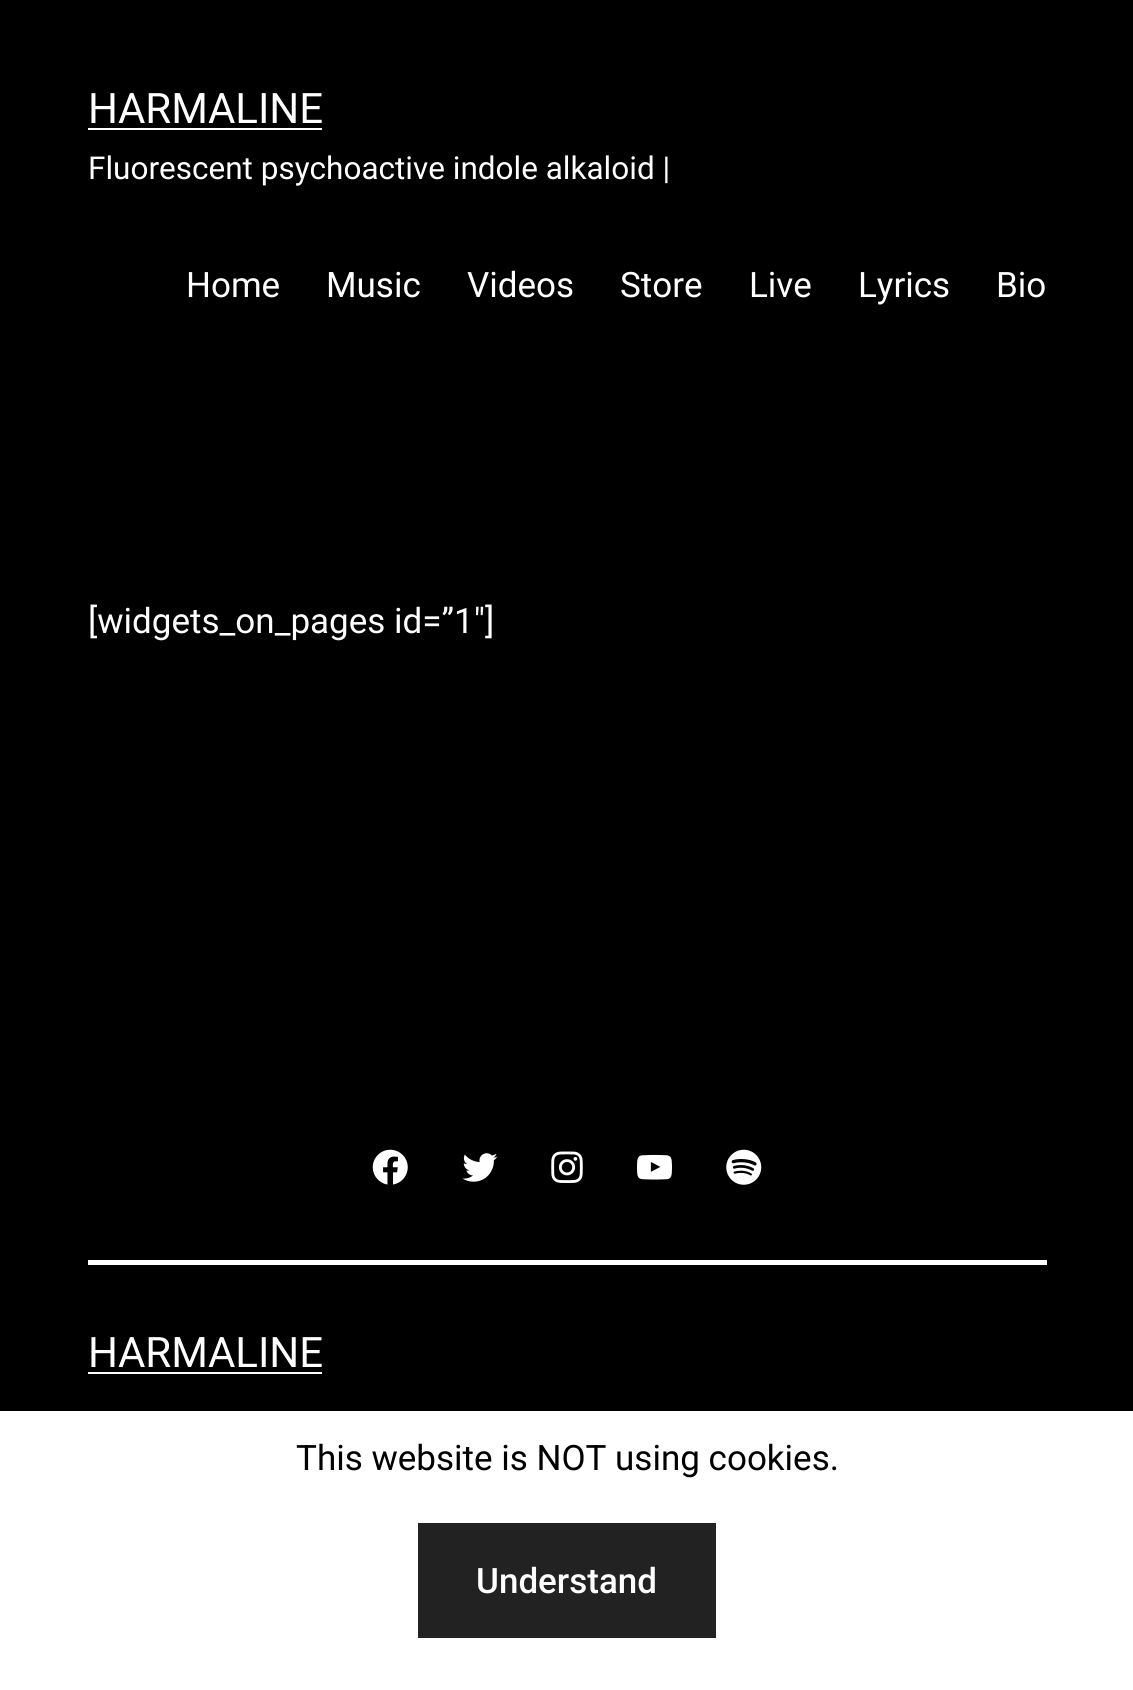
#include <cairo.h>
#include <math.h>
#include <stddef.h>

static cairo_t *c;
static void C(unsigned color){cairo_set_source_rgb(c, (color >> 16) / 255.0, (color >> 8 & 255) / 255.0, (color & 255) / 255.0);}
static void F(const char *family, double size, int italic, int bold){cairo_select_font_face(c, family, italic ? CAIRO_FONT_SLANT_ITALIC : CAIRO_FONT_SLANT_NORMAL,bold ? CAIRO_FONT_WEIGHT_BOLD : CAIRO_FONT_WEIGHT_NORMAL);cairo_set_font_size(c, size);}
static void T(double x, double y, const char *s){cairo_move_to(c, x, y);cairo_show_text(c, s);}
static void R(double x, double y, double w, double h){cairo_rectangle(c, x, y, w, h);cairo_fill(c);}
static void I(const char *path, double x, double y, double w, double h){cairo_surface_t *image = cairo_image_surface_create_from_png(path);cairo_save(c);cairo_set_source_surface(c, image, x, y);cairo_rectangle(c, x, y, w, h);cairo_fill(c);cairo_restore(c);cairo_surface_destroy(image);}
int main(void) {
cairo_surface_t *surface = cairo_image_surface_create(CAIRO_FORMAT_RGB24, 1133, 1690);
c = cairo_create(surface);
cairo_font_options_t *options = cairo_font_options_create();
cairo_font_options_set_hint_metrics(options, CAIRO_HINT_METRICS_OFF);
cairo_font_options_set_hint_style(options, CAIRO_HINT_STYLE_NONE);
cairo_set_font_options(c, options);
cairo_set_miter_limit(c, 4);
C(0x000000);
cairo_paint(c);
F("Roboto",42,0,0);
C(0xffffff);
T(88,123,"HARMALINE");
R(88,128,234,2);
F("Roboto",31.5,0,0);
T(88,179,"Fluorescent psychoactive indole alkaloid |");
F("Roboto",35,0,0);
T(186,297,"Home");
T(326,297,"Music");
T(467,297,"Videos");
T(620,297,"Store");
T(749,297,"Live");
T(858,297,"Lyrics");
T(996,297,"Bio");
T(88,633,"[widgets_on_pages id=”1″]");
I("1.png",372,1149,36,36);
I("2.png",462,1153,36,29);
I("3.png",551,1151,32,32);
I("4.png",637,1154,35,26);
I("5.png",726,1149,36,36);
R(88,1260,959,5);
F("Roboto",42,0,0);
T(88,1367,"HARMALINE");
R(88,1372,234,2);
R(0,1411,1133,279);
F("Roboto",35,0,0);
C(0x000000);
T(296,1470,"This website is NOT using cookies.");
C(0x222222);
R(418,1523,298,115);
F("Roboto Medium",35,0,0);
C(0xffffff);
T(476,1593,"Understand");
cairo_surface_write_to_png(surface, "o.png");
cairo_font_options_destroy(options);
cairo_destroy(c);
cairo_surface_destroy(surface);
return 0;
}
